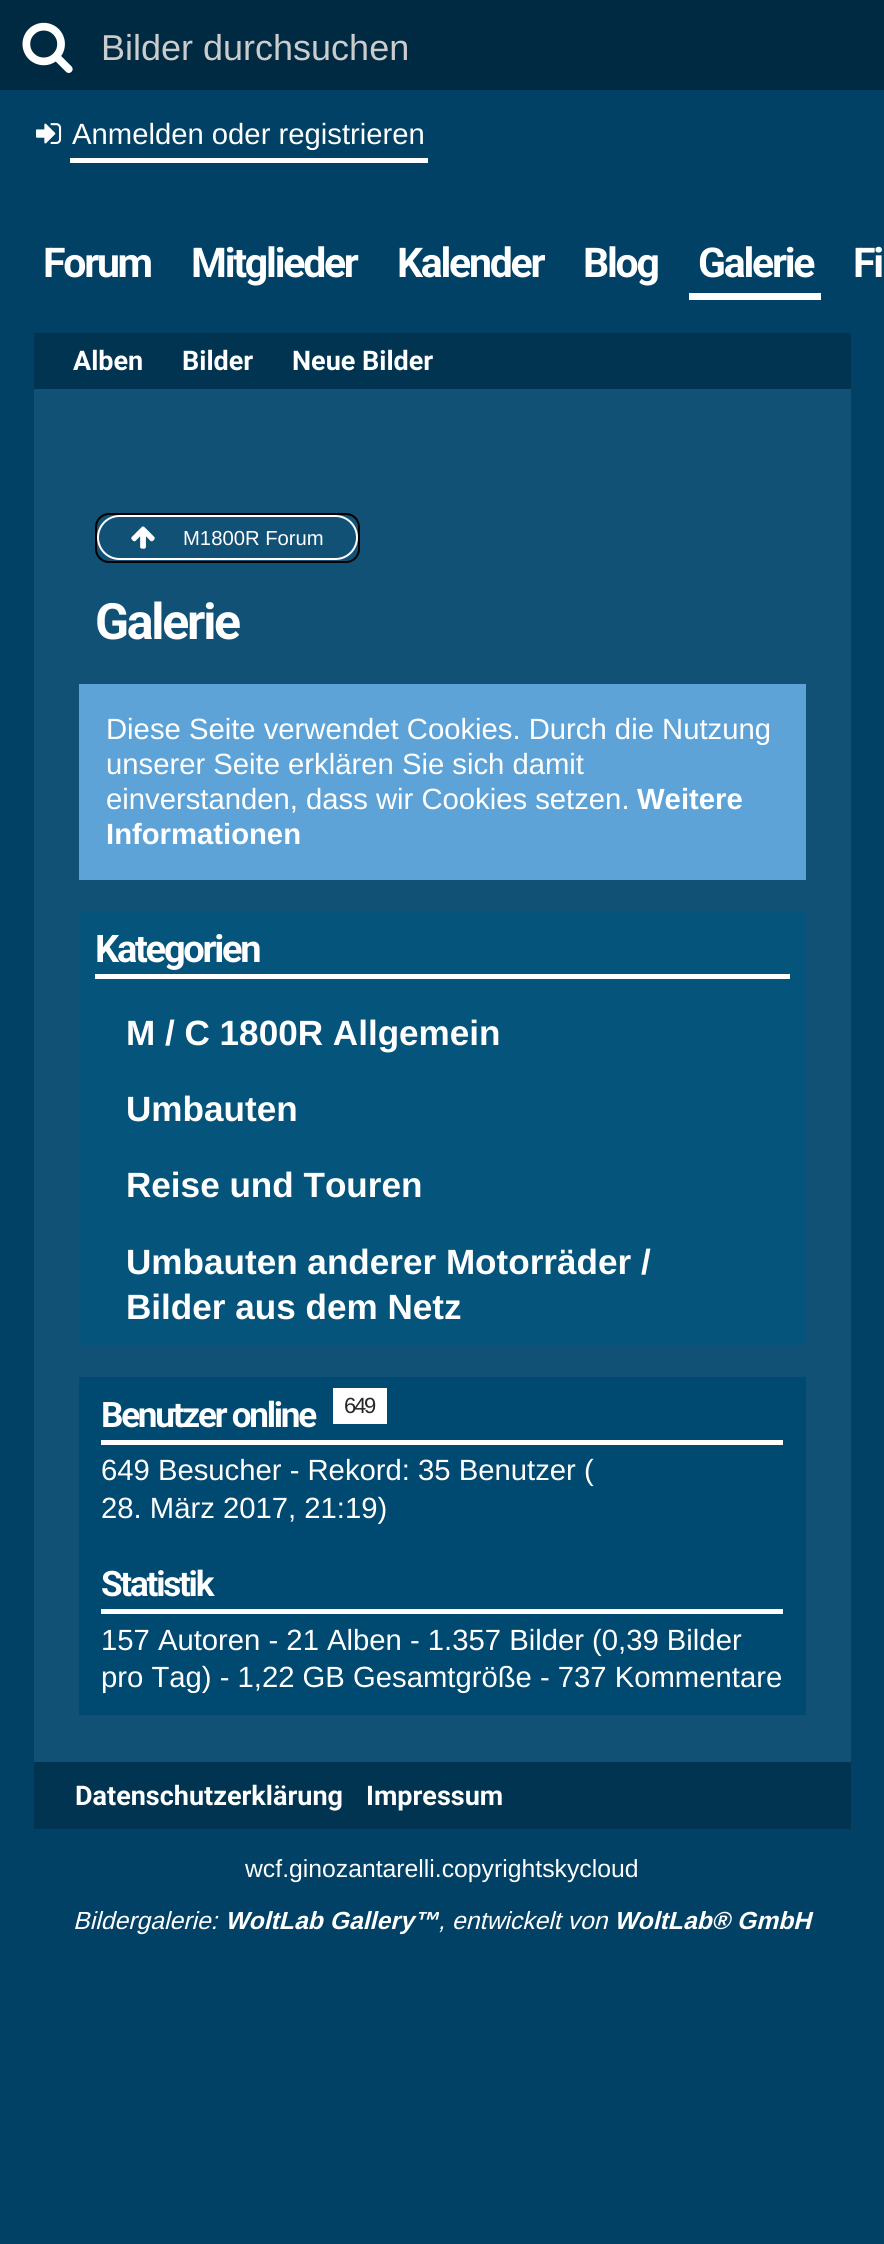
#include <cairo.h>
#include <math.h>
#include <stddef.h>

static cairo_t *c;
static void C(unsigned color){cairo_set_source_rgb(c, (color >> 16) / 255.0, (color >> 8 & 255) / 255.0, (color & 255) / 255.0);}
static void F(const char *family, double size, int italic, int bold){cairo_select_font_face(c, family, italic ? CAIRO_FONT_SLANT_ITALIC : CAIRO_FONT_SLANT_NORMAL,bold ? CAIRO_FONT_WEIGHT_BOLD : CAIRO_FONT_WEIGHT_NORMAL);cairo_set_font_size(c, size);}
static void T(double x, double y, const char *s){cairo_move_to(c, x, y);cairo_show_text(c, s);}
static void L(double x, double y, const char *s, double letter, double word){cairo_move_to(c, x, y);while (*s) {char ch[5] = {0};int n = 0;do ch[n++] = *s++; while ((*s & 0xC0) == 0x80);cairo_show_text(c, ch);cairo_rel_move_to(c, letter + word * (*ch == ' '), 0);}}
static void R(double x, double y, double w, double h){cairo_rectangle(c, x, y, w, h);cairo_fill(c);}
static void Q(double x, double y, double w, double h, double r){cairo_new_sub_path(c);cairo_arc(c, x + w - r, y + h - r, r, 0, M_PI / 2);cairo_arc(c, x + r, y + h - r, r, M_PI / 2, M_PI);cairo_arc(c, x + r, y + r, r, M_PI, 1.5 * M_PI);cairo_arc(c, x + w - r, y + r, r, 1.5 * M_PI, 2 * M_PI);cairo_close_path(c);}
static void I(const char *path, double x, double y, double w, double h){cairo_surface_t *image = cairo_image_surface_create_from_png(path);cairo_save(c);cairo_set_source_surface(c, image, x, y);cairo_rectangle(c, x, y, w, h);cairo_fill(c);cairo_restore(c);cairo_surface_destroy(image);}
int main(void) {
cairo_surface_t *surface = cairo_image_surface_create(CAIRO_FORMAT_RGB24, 884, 2244);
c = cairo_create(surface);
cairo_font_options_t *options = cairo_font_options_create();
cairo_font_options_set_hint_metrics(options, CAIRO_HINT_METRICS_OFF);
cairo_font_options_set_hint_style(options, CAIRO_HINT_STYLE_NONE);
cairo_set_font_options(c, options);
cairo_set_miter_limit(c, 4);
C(0x014165);
cairo_paint(c);
C(0x002a42);
R(0,0,884,90);
I("1.png",22,22,51,51);
F("Liberation Sans",36,0,0);
C(0xcccccc);
T(101,60,"Bilder durchsuchen");
C(0xffffff);
R(70,158,358,5);
I("2.png",36,123,26,21);
F("Arimo",29.25,0,0);
T(72,144,"Anmelden oder registrieren");
F("Roboto",41,0,1);
L(43,277,"Forum",-2.25,0);
L(191,277,"Mitglieder",-2.25,0);
L(397,277,"Kalender",-2.25,0);
L(583,277,"Blog",-2.25,0);
R(689,293,132,7);
L(698,277,"Galerie",-2.25,0);
L(853,277,"Fi",-2.25,0);
C(0x003451);
R(34,333,817,56);
F("Roboto",27,0,1);
C(0xffffff);
T(73,370,"Alben");
T(182,370,"Bilder");
T(292,370,"Neue Bilder");
C(0x115176);
R(34,389,817,1373);
Q(96,514,263,48,13);
C(0x000000);
cairo_stroke(c);
Q(98,516,259,43,21.5);
C(0xffffff);
cairo_stroke(c);
I("3.png",131,526,24,23);
F("Arimo",20.25,0,0);
T(183,545,"M1800R Forum");
F("Roboto",50,0,1);
L(95,639,"Galerie",-2.25,0);
C(0x5ea3d7);
R(79,684,727,196);
F("Arimo",29.25,0,0);
C(0xffffff);
T(106,739,"Diese Seite verwendet Cookies. Durch die Nutzung");
T(106,774,"unserer Seite erklären Sie sich damit");
T(106,809,"einverstanden, dass wir Cookies setzen.");
F("Arimo",29.25,0,1);
T(637,809,"Weitere");
T(106,844,"Informationen");
C(0x04547c);
R(79,911,727,435);
C(0xffffff);
R(95,974,695,5);
F("Roboto",38,0,1);
L(95,962,"Kategorien",-2.25,0);
F("Arimo",35.1,0,1);
T(126,1045,"M / C 1800R Allgemein");
T(126,1121,"Umbauten");
T(126,1197,"Reise und Touren");
T(126,1274,"Umbauten anderer Motorräder /");
T(126,1319,"Bilder aus dem Netz");
C(0x004971);
R(79,1377,727,338);
C(0xffffff);
R(101,1440,682,5);
F("Roboto",35.1,0,1);
L(101,1427,"Benutzer online",-2.25,0);
R(333,1388,54,36);
F("Liberation Sans",22,0,0);
C(0x272727);
L(344,1413,"649",-2.25,0);
F("Arimo",29.25,0,0);
C(0xffffff);
T(101,1480,"649 Besucher - Rekord: 35 Benutzer (");
T(101,1518,"28. März 2017, 21:19)");
R(101,1609,682,5);
F("Roboto",35.1,0,1);
L(101,1596,"Statistik",-2.25,0);
F("Arimo",29.25,0,0);
T(101,1650,"157 Autoren - 21 Alben - 1.357 Bilder (0,39 Bilder");
T(101,1687,"pro Tag) - 1,22 GB Gesamtgröße - 737 Kommentare");
C(0x003451);
R(34,1762,817,67);
F("Roboto",27,0,1);
C(0xffffff);
T(75,1805,"Datenschutzerklärung");
T(366,1805,"Impressum");
F("Arimo",24.75,0,0);
T(245,1877,"wcf.ginozantarelli.copyrightskycloud");
F("Arimo",24.75,1,0);
T(73,1929,"Bildergalerie:");
F("Arimo",24.75,1,1);
T(225,1929,"WoltLab Gallery™");
F("Arimo",24.75,1,0);
T(438,1929,", entwickelt von");
F("Arimo",24.75,1,1);
T(614,1929,"WoltLab® GmbH");
cairo_surface_write_to_png(surface, "o.png");
cairo_font_options_destroy(options);
cairo_destroy(c);
cairo_surface_destroy(surface);
return 0;
}
